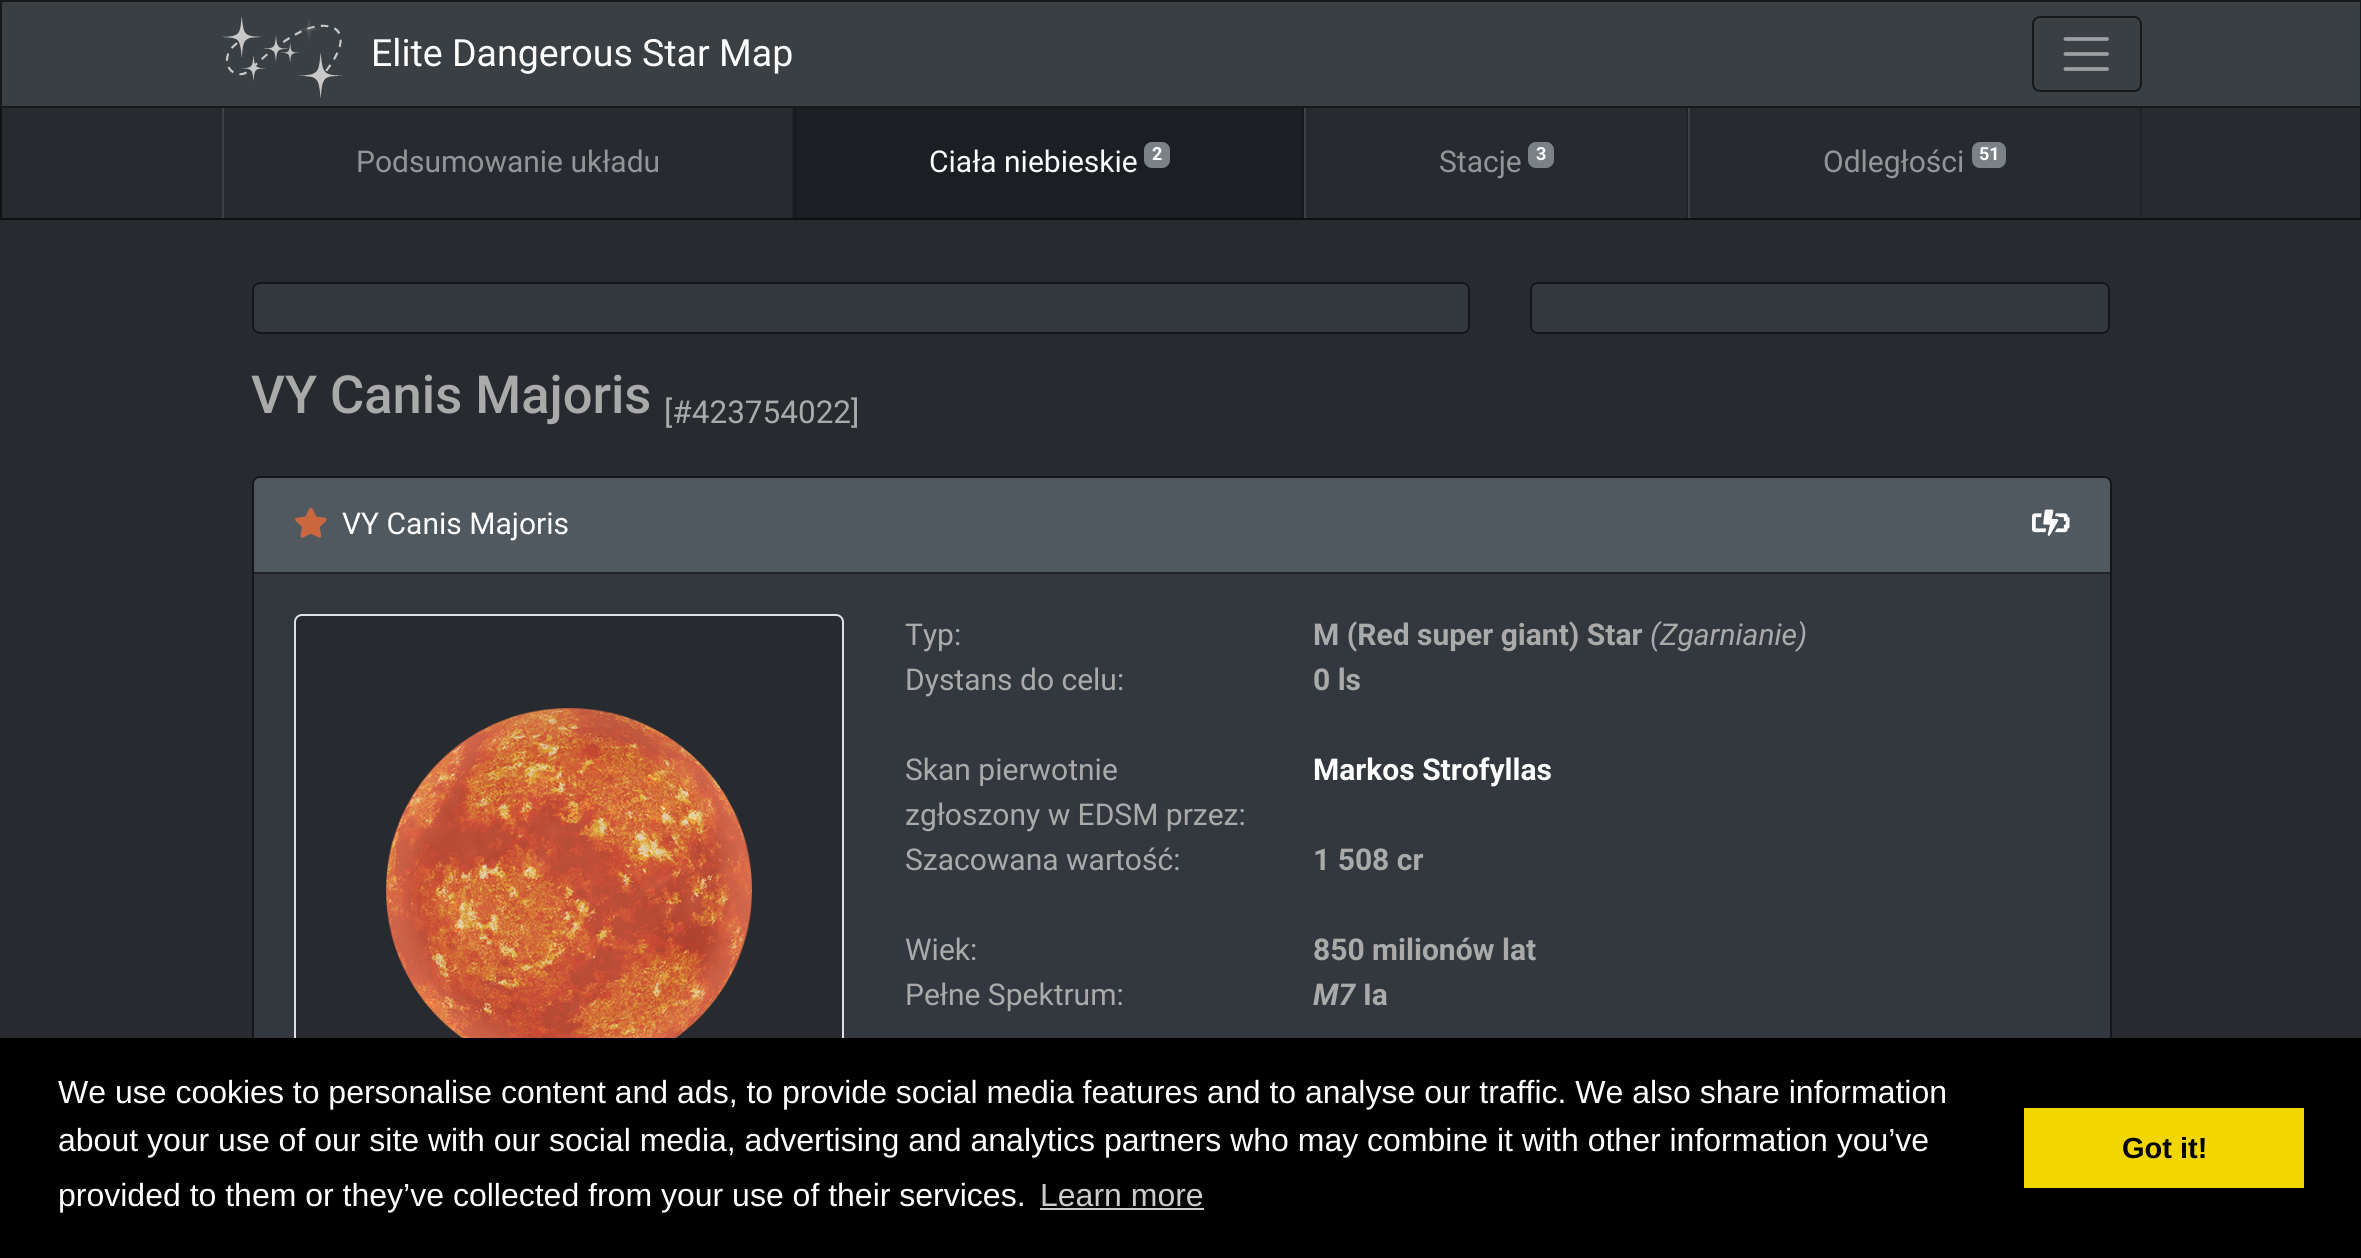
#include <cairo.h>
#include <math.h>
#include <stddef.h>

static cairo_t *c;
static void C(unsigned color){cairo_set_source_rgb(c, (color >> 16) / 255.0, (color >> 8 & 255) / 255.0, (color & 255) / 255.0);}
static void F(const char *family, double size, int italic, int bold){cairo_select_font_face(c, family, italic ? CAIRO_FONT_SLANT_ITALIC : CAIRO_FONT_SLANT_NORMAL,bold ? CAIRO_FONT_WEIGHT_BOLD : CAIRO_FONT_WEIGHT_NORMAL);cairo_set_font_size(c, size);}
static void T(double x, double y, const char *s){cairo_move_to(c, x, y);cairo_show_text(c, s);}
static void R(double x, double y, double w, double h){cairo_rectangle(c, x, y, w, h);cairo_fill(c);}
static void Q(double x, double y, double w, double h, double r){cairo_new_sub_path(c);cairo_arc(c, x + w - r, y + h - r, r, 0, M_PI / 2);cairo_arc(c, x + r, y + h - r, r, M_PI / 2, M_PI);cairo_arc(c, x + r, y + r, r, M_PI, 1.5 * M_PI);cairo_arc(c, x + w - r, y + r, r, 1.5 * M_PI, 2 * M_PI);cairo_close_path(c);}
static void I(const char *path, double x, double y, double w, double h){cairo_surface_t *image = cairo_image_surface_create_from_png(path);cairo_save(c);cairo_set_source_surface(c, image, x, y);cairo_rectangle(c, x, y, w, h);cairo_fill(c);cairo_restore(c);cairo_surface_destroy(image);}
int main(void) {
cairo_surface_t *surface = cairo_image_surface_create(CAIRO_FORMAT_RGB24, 2361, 1258);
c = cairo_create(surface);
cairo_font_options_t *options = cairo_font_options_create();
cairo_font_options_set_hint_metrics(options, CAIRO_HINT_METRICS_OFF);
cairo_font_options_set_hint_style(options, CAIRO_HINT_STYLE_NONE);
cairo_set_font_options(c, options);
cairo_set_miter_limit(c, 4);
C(0x272b30);
cairo_paint(c);
cairo_rectangle(c,1,107,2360,112);
C(0x101113);
cairo_stroke(c);
C(0x3a3f44);
cairo_rectangle(c,1,1,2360,106);
cairo_fill_preserve(c);
C(0x17191b);
cairo_stroke(c);
I("1.png",222,16,120,82);
F("Roboto",37.5,0,0);
C(0xffffff);
T(371,66,"Elite Dangerous Star Map");
Q(2033,17,108,74,7);
C(0x17191b);
cairo_stroke(c);
cairo_new_path(c);
cairo_move_to(c,2065.5,39);
cairo_line_to(c,2107,39);
cairo_move_to(c,2065.5,54);
cairo_line_to(c,2107,54);
cairo_move_to(c,2065.5,69);
cairo_line_to(c,2107,69);
C(0x9d9fa2);
cairo_set_line_width(c,3.8);
cairo_set_line_cap(c,CAIRO_LINE_CAP_ROUND);
cairo_stroke(c);
C(0x1f2226);
R(792,108,2,110);
C(0x3d4045);
R(222,108,2,110);
F("Roboto",30,0,0);
C(0x939598);
T(356,172,"Podsumowanie układu");
C(0x1b1e22);
R(796,108,506,110);
C(0x16181b);
R(1302,108,2,110);
R(794,108,2,110);
C(0xffffff);
T(929,172,"Ciała niebieskie");
C(0x7a8288);
Q(1144,142,26,26,8);
cairo_fill(c);
F("Roboto",18,0,1);
C(0xffffff);
T(1152,160,"2");
C(0x1f2226);
R(1686,108,2,110);
C(0x3d4045);
R(1304,108,2,110);
F("Roboto",30,0,0);
C(0x939598);
T(1439,172,"Stacje");
C(0x7a8288);
Q(1528,142,26,26,8);
cairo_fill(c);
F("Roboto",18,0,1);
C(0xffffff);
T(1536,160,"3");
C(0x1f2226);
R(2140,108,2,110);
C(0x3d4045);
R(1688,108,2,110);
F("Roboto",30,0,0);
C(0x939598);
T(1823,172,"Odległości");
C(0x7a8288);
Q(1972,142,34,26,8);
cairo_fill(c);
F("Roboto",18,0,1);
C(0xffffff);
T(1979,160,"51");
C(0x32383e);
Q(252,282,1218,52,8);
cairo_fill(c);
Q(253,283,1216,50,7);
cairo_set_source_rgba(c,0,0,0,0.6);
cairo_set_line_width(c,2);
cairo_set_line_cap(c,CAIRO_LINE_CAP_BUTT);
cairo_stroke(c);
C(0x32383e);
Q(1530,282,580,52,8);
cairo_fill(c);
Q(1531,283,578,50,7);
cairo_set_source_rgba(c,0,0,0,0.6);
cairo_stroke(c);
F("Roboto Medium",52.5,0,0);
C(0xaaaaaa);
T(251,413,"VY Canis Majoris");
F("Roboto",31.5,0,0);
T(664,423,"[#423754022]");
C(0x32383e);
Q(252,476,1860,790,8);
cairo_fill(c);
Q(253,477,1858,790,7);
cairo_set_source_rgba(c,0,0,0,0.6);
cairo_stroke(c);
C(0x515960);
cairo_new_path(c);
cairo_move_to(c,260,478);
cairo_line_to(c,2104,478);
cairo_curve_to(c,2107.5,478,2110,480.5,2110,484);
cairo_line_to(c,2110,574);
cairo_line_to(c,254,574);
cairo_line_to(c,254,484);
cairo_curve_to(c,254,480.5,256.5,478,260,478);
cairo_close_path(c);
cairo_fill(c);
C(0x202426);
R(254,572,1856,2);
I("2.png",295,507,32,31);
F("Roboto",30,0,0);
C(0xffffff);
T(342,534,"VY Canis Majoris");
I("3.png",2032,509,38,27);
C(0x272b30);
Q(295,615,548,550,7);
cairo_fill_preserve(c);
C(0xdee2e6);
cairo_stroke(c);
I("4.png",386,708,366,330);
C(0xaaaaaa);
T(905,645,"Typ:");
F("Roboto",30,0,1);
T(1313,645,"M (Red super giant) Star");
F("Roboto",30,1,0);
T(1650,645,"(Zgarnianie)");
F("Roboto",30,0,0);
T(905,690,"Dystans do celu:");
F("Roboto",30,0,1);
T(1313,690,"0 ls");
F("Roboto",30,0,0);
T(905,780,"Skan pierwotnie");
T(905,825,"zgłoszony w EDSM przez:");
F("Roboto",30,0,1);
C(0xffffff);
T(1313,780,"Markos Strofyllas");
F("Roboto",30,0,0);
C(0xaaaaaa);
T(905,870,"Szacowana wartość:");
F("Roboto",30,0,1);
T(1313,870,"1 508 cr");
F("Roboto",30,0,0);
T(905,960,"Wiek:");
F("Roboto",30,0,1);
T(1313,960,"850 milionów lat");
F("Roboto",30,0,0);
T(905,1005,"Pełne Spektrum:");
F("Roboto",30,1,1);
T(1313,1005,"M7");
F("Roboto",30,0,1);
T(1363,1005,"Ia");
C(0x000000);
R(0,1038,2361,220);
F("Liberation Sans",32,0,0);
C(0xffffff);
T(58,1103,"We use cookies to personalise content and ads, to provide social media features and to analyse our traffic. We also share information");
T(58,1151,"about your use of our site with our social media, advertising and analytics partners who may combine it with other information you’ve");
T(58,1206,"provided to them or they’ve collected from your use of their services.");
C(0xcccccc);
T(1040,1206,"Learn more");
R(1040,1208,164,2);
C(0xf1d600);
R(2024,1108,280,80);
F("Liberation Sans",29,0,1);
C(0x000000);
T(2122,1158,"Got it!");
cairo_surface_write_to_png(surface, "o.png");
cairo_font_options_destroy(options);
cairo_destroy(c);
cairo_surface_destroy(surface);
return 0;
}
